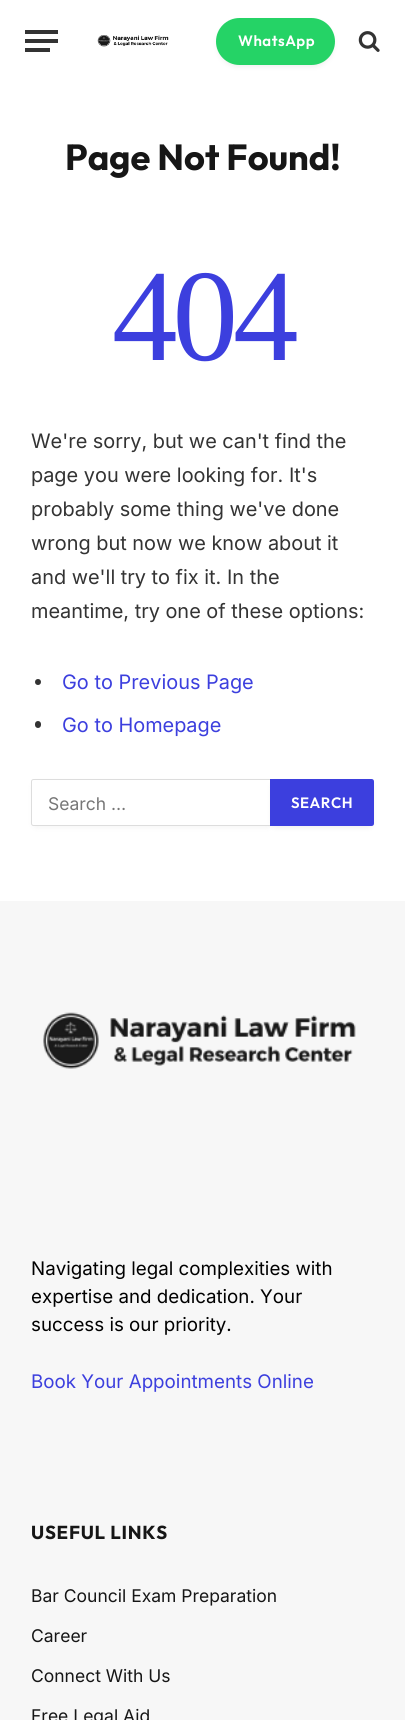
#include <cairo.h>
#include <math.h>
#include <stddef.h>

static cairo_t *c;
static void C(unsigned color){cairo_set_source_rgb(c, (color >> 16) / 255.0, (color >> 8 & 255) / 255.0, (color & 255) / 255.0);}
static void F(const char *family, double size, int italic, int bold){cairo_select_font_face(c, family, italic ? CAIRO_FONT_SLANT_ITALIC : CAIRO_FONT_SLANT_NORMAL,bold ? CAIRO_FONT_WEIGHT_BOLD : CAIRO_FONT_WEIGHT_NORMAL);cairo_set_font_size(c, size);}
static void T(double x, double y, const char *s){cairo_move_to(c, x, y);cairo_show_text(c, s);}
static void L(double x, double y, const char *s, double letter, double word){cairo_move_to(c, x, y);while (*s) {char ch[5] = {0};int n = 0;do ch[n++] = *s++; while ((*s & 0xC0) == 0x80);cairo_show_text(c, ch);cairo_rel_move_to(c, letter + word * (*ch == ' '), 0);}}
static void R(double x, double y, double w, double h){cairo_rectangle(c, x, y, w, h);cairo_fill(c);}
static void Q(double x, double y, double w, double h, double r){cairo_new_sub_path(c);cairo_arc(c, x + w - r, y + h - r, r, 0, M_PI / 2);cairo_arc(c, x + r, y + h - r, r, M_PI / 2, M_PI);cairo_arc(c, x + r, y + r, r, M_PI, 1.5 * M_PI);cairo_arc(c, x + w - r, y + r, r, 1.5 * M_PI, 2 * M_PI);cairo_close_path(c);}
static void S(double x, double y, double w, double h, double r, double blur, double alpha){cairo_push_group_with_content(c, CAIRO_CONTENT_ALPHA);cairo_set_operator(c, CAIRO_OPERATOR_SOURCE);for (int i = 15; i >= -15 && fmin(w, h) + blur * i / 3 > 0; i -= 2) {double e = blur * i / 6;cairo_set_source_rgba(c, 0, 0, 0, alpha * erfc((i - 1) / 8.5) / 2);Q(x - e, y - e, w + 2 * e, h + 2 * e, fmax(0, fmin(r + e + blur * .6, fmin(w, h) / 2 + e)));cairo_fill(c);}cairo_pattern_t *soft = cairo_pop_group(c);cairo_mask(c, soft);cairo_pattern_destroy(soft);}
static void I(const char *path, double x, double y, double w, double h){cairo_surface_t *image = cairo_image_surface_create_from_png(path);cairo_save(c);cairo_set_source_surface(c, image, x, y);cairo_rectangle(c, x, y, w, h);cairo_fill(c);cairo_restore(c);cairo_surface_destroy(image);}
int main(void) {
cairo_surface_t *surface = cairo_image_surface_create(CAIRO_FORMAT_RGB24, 405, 1720);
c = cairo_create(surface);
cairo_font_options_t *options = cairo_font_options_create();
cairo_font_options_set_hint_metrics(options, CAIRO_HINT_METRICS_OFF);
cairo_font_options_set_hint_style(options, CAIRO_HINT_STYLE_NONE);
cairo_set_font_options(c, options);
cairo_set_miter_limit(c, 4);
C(0xffffff);
cairo_paint(c);
C(0x333333);
R(25,48,25,4);
R(25,30,33,4);
R(25,39,33,4);
I("1.png",97,35,72,12);
C(0x000000);
S(221,25,109,38,19,4.5,.16);
C(0x25d366);
Q(216,18,119,47,23.5);
cairo_fill(c);
F("Outfit SemiBold",15,0,0);
C(0xffffff);
L(238,46,"WhatsApp",.5,0);
I("2.png",358,31,22,21);
F("Outfit",36.25,0,1);
C(0x161616);
T(65,170,"Page Not Found!");
F("Liberation Serif",131,0,0);
C(0x3c3fde);
L(112,360,"404",-5,0);
F("Inter",19.9,0,0);
C(0x333333);
T(31,448,"We're sorry, but we can't find the");
T(31,482,"page you were looking for. It's");
T(31,516,"probably some thing we've done");
T(31,550,"wrong but now we know about it");
T(31,584,"and we'll try to fix it. In the");
T(31,618,"meantime, try one of these options:");
cairo_new_path(c);
cairo_arc(c,38,682,3,0,2 * M_PI);
cairo_fill(c);
C(0x3c3fde);
T(62,689,"Go to Previous Page");
C(0x333333);
Q(35,721,6,7,3);
cairo_fill(c);
C(0x3c3fde);
T(62,732,"Go to Homepage");
C(0x000000);
S(36,786,232,38,0,4.5,.1);
C(0xffffff);
Q(31.5,779.5,241,46,2);
cairo_fill_preserve(c);
C(0xdddddd);
cairo_set_line_width(c,1);
cairo_stroke(c);
F("Inter",17.5,0,0);
C(0x777777);
T(48,810,"Search …");
C(0x000000);
S(275,786,94,38,0,4.5,.16);
C(0x3c3fde);
cairo_new_path(c);
cairo_move_to(c,270,779);
cairo_line_to(c,371.5,779);
cairo_curve_to(c,373,779,374,780,374,781.5);
cairo_line_to(c,374,823.5);
cairo_curve_to(c,374,825,373,826,371.5,826);
cairo_line_to(c,270,826);
cairo_close_path(c);
cairo_fill(c);
F("Outfit SemiBold",15,0,0);
C(0xffffff);
L(291,808,"SEARCH",.5,0);
C(0xf7f7f7);
R(0,901,405,819);
I("3.png",43,1012,313,57);
F("Inter",18.75,0,0);
C(0x000000);
T(31,1275,"Navigating legal complexities with");
T(31,1303,"expertise and dedication. Your");
T(31,1331,"success is our priority.");
C(0x3c3fde);
T(31,1388,"Book Your Appointments Online");
F("Outfit",18.75,0,1);
C(0x161616);
L(31,1539,"USEFUL LINKS",.75,0);
F("Inter",17.5,0,0);
T(31,1602,"Bar Council Exam Preparation");
T(31,1642,"Career");
T(31,1682,"Connect With Us");
T(31,1722,"Free Legal Aid");
cairo_surface_write_to_png(surface, "o.png");
cairo_font_options_destroy(options);
cairo_destroy(c);
cairo_surface_destroy(surface);
return 0;
}
